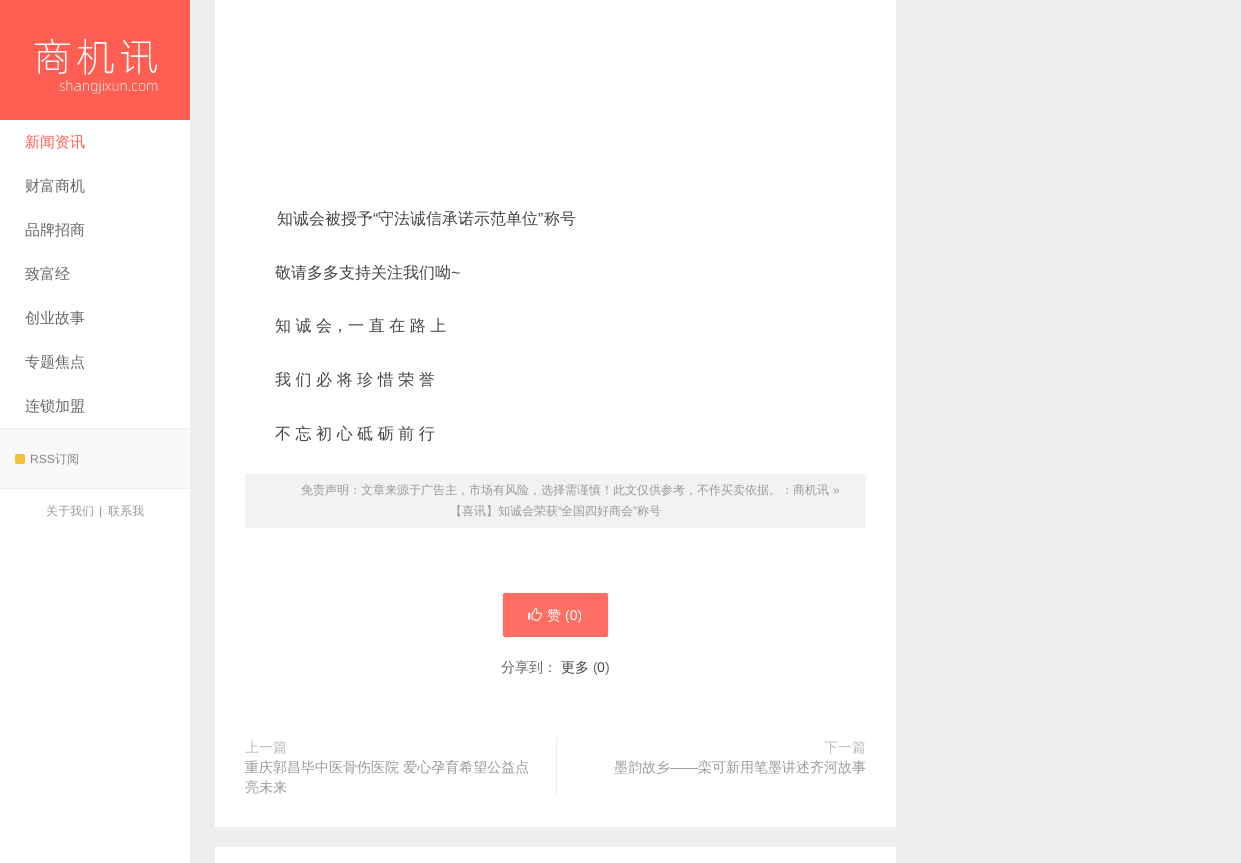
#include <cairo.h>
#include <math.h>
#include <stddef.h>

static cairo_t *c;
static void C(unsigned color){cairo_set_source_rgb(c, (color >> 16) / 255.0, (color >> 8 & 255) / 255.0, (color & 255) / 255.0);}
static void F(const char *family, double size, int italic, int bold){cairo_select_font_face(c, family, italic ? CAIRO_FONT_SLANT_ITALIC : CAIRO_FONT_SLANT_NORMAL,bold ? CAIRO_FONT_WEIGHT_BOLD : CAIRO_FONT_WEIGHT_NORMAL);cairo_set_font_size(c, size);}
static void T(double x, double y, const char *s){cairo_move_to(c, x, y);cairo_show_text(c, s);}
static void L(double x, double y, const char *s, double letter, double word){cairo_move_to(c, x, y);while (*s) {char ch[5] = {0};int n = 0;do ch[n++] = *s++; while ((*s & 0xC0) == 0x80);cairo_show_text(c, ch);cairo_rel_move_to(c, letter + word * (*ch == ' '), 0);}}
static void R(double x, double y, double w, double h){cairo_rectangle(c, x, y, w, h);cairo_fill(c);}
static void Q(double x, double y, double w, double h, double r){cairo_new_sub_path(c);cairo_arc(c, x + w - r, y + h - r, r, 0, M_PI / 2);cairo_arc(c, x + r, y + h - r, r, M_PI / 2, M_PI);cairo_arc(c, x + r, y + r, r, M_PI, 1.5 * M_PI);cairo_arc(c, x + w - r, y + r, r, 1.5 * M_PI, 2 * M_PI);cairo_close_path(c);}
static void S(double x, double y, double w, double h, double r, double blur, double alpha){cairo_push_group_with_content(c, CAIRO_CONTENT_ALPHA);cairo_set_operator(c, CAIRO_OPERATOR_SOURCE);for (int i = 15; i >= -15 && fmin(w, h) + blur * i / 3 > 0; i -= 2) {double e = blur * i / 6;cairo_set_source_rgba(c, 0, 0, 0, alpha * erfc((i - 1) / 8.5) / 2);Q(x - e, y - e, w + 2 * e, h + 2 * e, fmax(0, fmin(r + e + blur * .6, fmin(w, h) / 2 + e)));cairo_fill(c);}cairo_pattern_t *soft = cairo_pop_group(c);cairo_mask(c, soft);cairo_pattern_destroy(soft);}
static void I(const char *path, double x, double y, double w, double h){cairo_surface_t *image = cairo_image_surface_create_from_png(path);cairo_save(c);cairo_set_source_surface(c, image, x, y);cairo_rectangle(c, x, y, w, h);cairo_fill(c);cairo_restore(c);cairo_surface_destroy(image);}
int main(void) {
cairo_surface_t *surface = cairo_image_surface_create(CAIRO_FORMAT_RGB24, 1241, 863);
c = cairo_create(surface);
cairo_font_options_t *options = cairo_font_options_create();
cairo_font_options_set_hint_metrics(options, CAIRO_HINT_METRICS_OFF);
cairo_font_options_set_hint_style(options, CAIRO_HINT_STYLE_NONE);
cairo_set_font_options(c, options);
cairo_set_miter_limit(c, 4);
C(0xeeeeee);
cairo_paint(c);
C(0xffffff);
R(0,120,190,743);
C(0xff5e52);
R(0,0,190,120);
I("1.png",34,38,124,56);
C(0xeeeeee);
R(0,428,190,1);
F("WenQuanYi Zen Hei Medium",15,0,0);
C(0xff5e52);
T(25,147,"新闻资讯");
C(0x666666);
T(25,191,"财富商机");
T(25,235,"品牌招商");
T(25,279,"致富经");
T(25,323,"创业故事");
T(25,367,"专题焦点");
T(25,411,"连锁加盟");
C(0xf9f9f9);
R(0,429,190,59);
C(0xeeeeee);
R(0,488,190,1);
C(0xf3c136);
Q(15,454,10,10,2);
cairo_fill(c);
F("Liberation Sans",12,0,0);
C(0x838383);
T(30,463,"RSS");
F("WenQuanYi Zen Hei Medium",12,0,0);
T(55,463,"订阅");
C(0x999999);
T(46,515,"关于我们");
F("Liberation Sans",12,0,0);
T(99,515,"|");
F("WenQuanYi Zen Hei Medium",12,0,0);
T(108,515,"联系我");
C(0xffffff);
R(215,0,681,657);
F("WenQuanYi Zen Hei Medium",16,0,0);
C(0x444444);
T(277,224,"知诚会被授予");
F("Liberation Sans",16,0,0);
T(373,224,"“");
F("WenQuanYi Zen Hei Medium",16,0,0);
T(378,224,"守法诚信承诺示范单位");
F("Liberation Sans",16,0,0);
T(538,224,"”");
F("WenQuanYi Zen Hei Medium",16,0,0);
T(544,224,"称号");
T(275,278,"敬请多多支持关注我们呦");
F("Liberation Sans",16,0,0);
T(451,278,"~");
F("WenQuanYi Zen Hei Medium",16,0,0);
L(275,331,"知 诚 会，一 直 在 路 上",0,-.25);
L(275,385,"我 们 必 将 珍 惜 荣 誉",0,-.25);
L(275,439,"不 忘 初 心 砥 砺 前 行",0,-.25);
C(0xf2f2f2);
Q(245,474,621,54,2);
cairo_fill(c);
F("WenQuanYi Zen Hei Medium",12,0,0);
C(0x999999);
T(301,494,"免责声明：文章来源于广告主，市场有风险，选择需谨慎！此文仅供参考，不作买卖依据。：商机讯");
F("Liberation Sans",12,0,0);
T(833,494,"»");
F("WenQuanYi Zen Hei Medium",12,0,0);
T(450,515,"【喜讯】知诚会荣获");
F("Liberation Sans",12,0,0);
T(558,515,"“");
F("WenQuanYi Zen Hei Medium",12,0,0);
T(561,515,"全国四好商会");
F("Liberation Sans",12,0,0);
T(633,515,"”");
F("WenQuanYi Zen Hei Medium",12,0,0);
T(637,515,"称号");
C(0x1a1a1a);
S(503,593,105,44,2,1,.12);
C(0xff6e63);
Q(503,593,105,44,2);
cairo_fill(c);
I("2.png",528,608,14,13);
F("WenQuanYi Zen Hei Medium",14,0,0);
C(0xffffff);
T(547,620,"赞");
F("Liberation Sans",14,0,0);
T(565,620,"(0)");
R(215,657,681,170);
F("WenQuanYi Zen Hei Medium",14,0,0);
C(0x666666);
T(501,672,"分享到：");
C(0x444444);
T(561,672,"更多");
F("Liberation Sans",14,0,0);
C(0x666666);
T(593,672,"(");
C(0x444444);
T(597,672,"0");
C(0x666666);
T(605,672,")");
F("WenQuanYi Zen Hei Medium",14,0,0);
C(0xbbbbbb);
T(245,752,"上一篇");
C(0xeeeeee);
R(556,737,1,60);
C(0x999999);
T(245,772,"重庆郭昌毕中医骨伤医院 爱心孕育希望公益点");
T(245,792,"亮未来");
C(0xbbbbbb);
T(824,752,"下一篇");
C(0x999999);
T(614,772,"墨韵故乡");
F("Liberation Sans",14,0,0);
T(670,772,"——");
F("WenQuanYi Zen Hei Medium",14,0,0);
T(698,772,"栾可新用笔墨讲述齐河故事");
C(0xffffff);
R(215,847,681,16);
cairo_surface_write_to_png(surface, "o.png");
cairo_font_options_destroy(options);
cairo_destroy(c);
cairo_surface_destroy(surface);
return 0;
}
